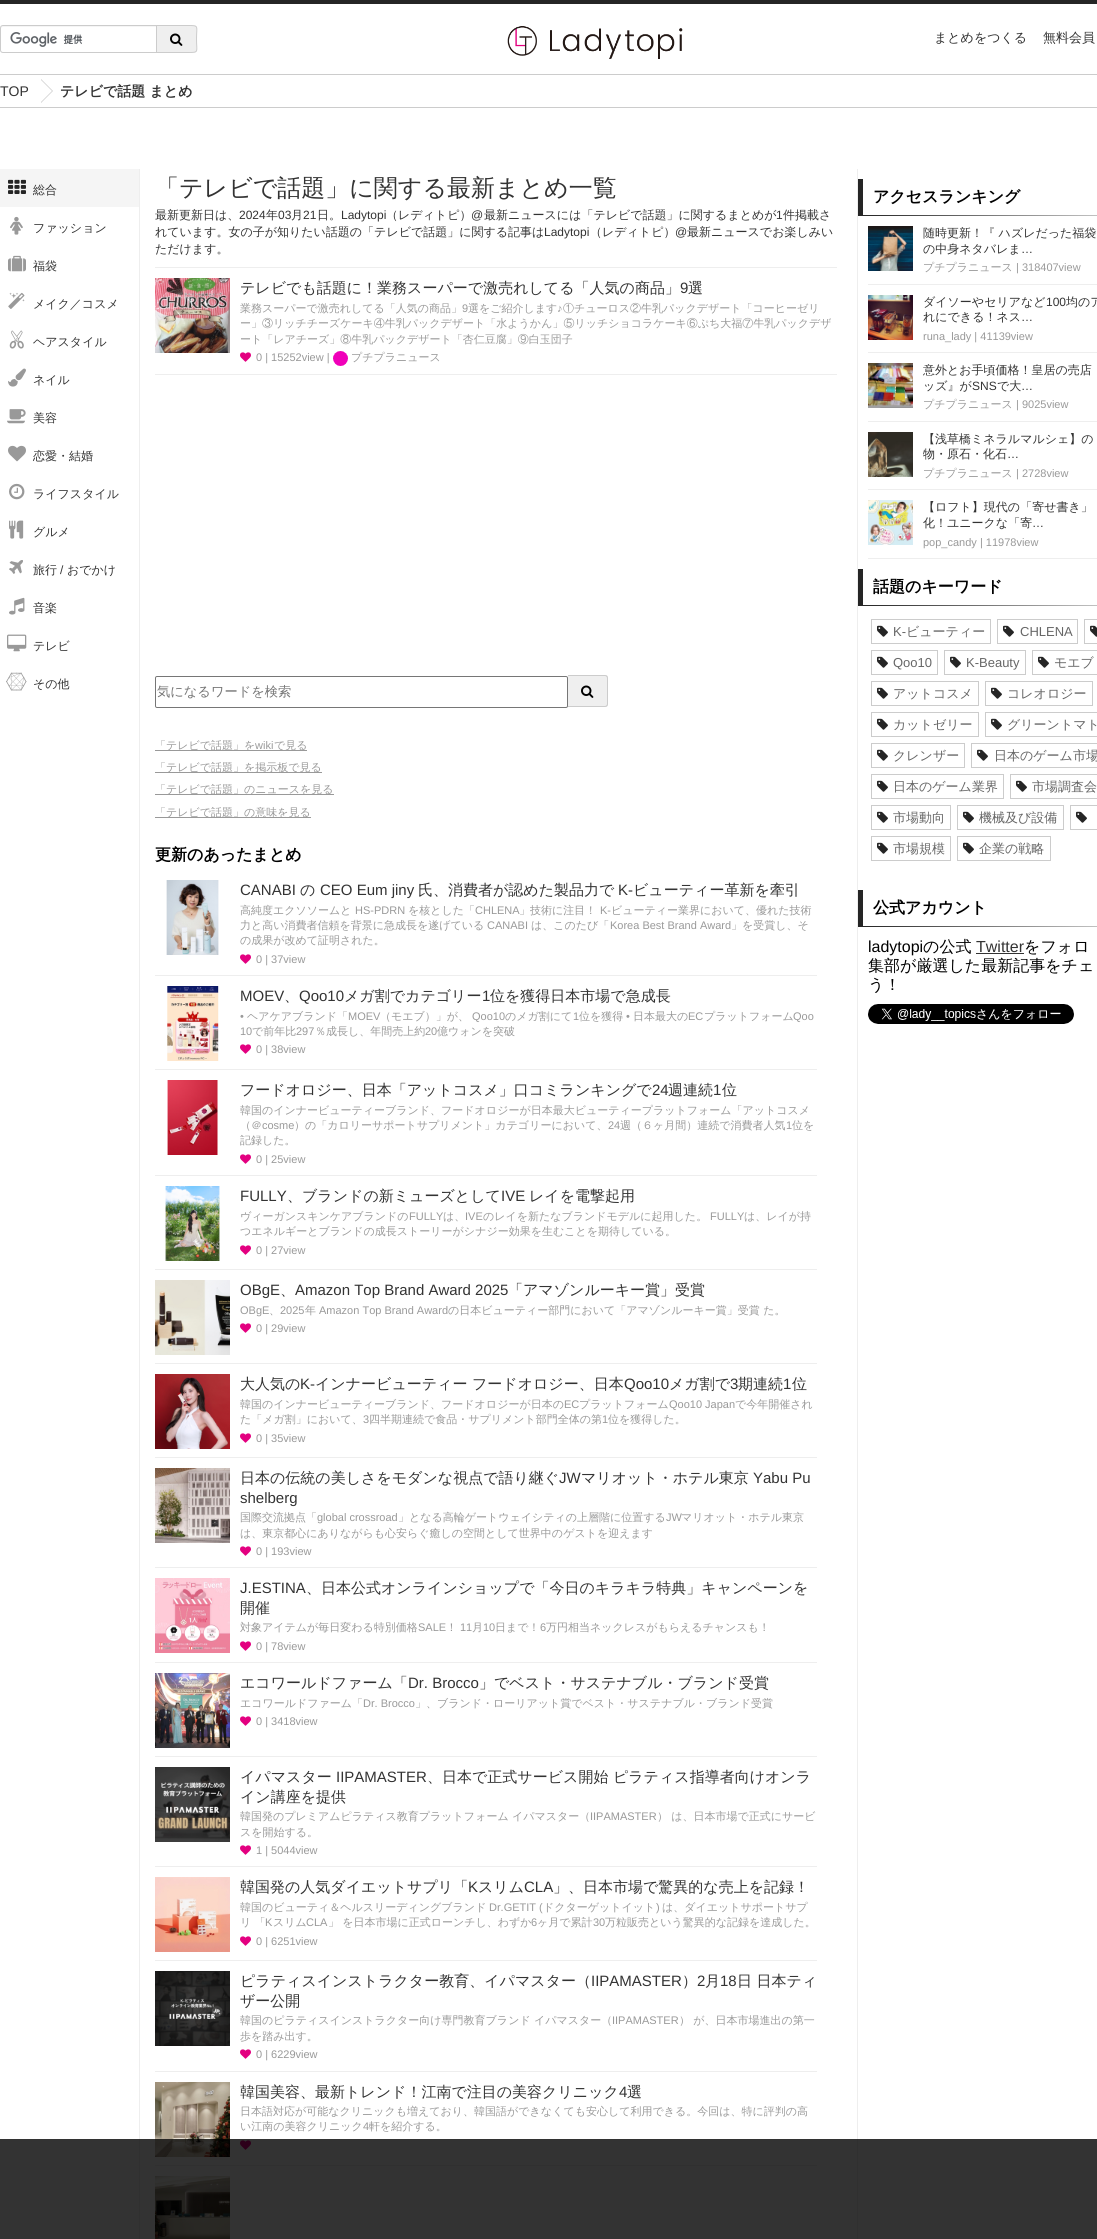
#include <cairo.h>
#include <math.h>
#include <stddef.h>

static cairo_t *c;
static void C(unsigned color){cairo_set_source_rgb(c, (color >> 16) / 255.0, (color >> 8 & 255) / 255.0, (color & 255) / 255.0);}
static void F(const char *family, double size, int italic, int bold){cairo_select_font_face(c, family, italic ? CAIRO_FONT_SLANT_ITALIC : CAIRO_FONT_SLANT_NORMAL,bold ? CAIRO_FONT_WEIGHT_BOLD : CAIRO_FONT_WEIGHT_NORMAL);cairo_set_font_size(c, size);}
static void T(double x, double y, const char *s){cairo_move_to(c, x, y);cairo_show_text(c, s);}
static void R(double x, double y, double w, double h){cairo_rectangle(c, x, y, w, h);cairo_fill(c);}
static void Q(double x, double y, double w, double h, double r){cairo_new_sub_path(c);cairo_arc(c, x + w - r, y + h - r, r, 0, M_PI / 2);cairo_arc(c, x + r, y + h - r, r, M_PI / 2, M_PI);cairo_arc(c, x + r, y + r, r, M_PI, 1.5 * M_PI);cairo_arc(c, x + w - r, y + r, r, 1.5 * M_PI, 2 * M_PI);cairo_close_path(c);}
static void I(const char *path, double x, double y, double w, double h){cairo_surface_t *image = cairo_image_surface_create_from_png(path);cairo_save(c);cairo_set_source_surface(c, image, x, y);cairo_rectangle(c, x, y, w, h);cairo_fill(c);cairo_restore(c);cairo_surface_destroy(image);}
int main(void) {
cairo_surface_t *surface = cairo_image_surface_create(CAIRO_FORMAT_RGB24, 1097, 2239);
c = cairo_create(surface);
cairo_font_options_t *options = cairo_font_options_create();
cairo_font_options_set_hint_metrics(options, CAIRO_HINT_METRICS_OFF);
cairo_font_options_set_hint_style(options, CAIRO_HINT_STYLE_NONE);
cairo_set_font_options(c, options);
cairo_set_miter_limit(c, 4);
cairo_pattern_t *gradient;
C(0xffffff);
cairo_paint(c);
C(0x252525);
R(0,0,1097,4);
C(0xcccccc);
R(0,74,1097,1);
I("1.png",10,32,73,15);
C(0xf5f5f5);
cairo_new_path(c);
cairo_move_to(c,3,27);
cairo_line_to(c,156,27);
cairo_line_to(c,156,26);
cairo_line_to(c,3,26);
cairo_curve_to(c,1,26,1,28,1,29);
cairo_curve_to(c,1,28,2,27,3,27);
cairo_close_path(c);
cairo_fill(c);
cairo_new_path(c);
cairo_move_to(c,3,25.5);
cairo_line_to(c,156.5,25.5);
cairo_line_to(c,156.5,52.5);
cairo_line_to(c,3,52.5);
cairo_curve_to(c,1.5,52.5,.5,51.5,.5,50);
cairo_line_to(c,.5,28);
cairo_curve_to(c,.5,26.5,1.5,25.5,3,25.5);
cairo_close_path(c);
C(0xcccccc);
cairo_set_line_width(c,1);
cairo_stroke(c);
C(0xefefef);
cairo_new_path(c);
cairo_move_to(c,157,25);
cairo_line_to(c,194,25);
cairo_curve_to(c,195.5,25,197,26.5,197,28);
cairo_line_to(c,197,50);
cairo_curve_to(c,197,51.5,195.5,53,194,53);
cairo_line_to(c,157,53);
cairo_close_path(c);
cairo_fill(c);
C(0xcccccc);
cairo_set_fill_rule(c,CAIRO_FILL_RULE_EVEN_ODD);
cairo_new_path(c);
cairo_move_to(c,157,25);
cairo_line_to(c,188,25);
cairo_curve_to(c,200,25,197,26,197,39);
cairo_curve_to(c,197,52,200,53,188,53);
cairo_line_to(c,157,53);
cairo_close_path(c);
cairo_move_to(c,157,26);
cairo_line_to(c,188,26);
cairo_curve_to(c,199,26,196,26,196,39);
cairo_curve_to(c,196,52,199,52,188,52);
cairo_line_to(c,157,52);
cairo_close_path(c);
cairo_fill(c);
I("2.png",170,33,13,13);
I("3.png",507,26,176,33);
F("WenQuanYi Zen Hei Medium",13,0,0);
C(0x333333);
T(934,42,"まとめをつくる");
T(1043,42,"無料会員");
C(0xcccccc);
R(0,107,1097,1);
cairo_set_fill_rule(c,CAIRO_FILL_RULE_WINDING);
cairo_new_path(c);
cairo_move_to(c,41,103);
cairo_line_to(c,41,79);
cairo_line_to(c,53,91);
cairo_close_path(c);
cairo_fill(c);
C(0xffffff);
cairo_new_path(c);
cairo_move_to(c,39,104);
cairo_line_to(c,39,78);
cairo_line_to(c,52,91);
cairo_close_path(c);
cairo_fill(c);
F("Liberation Sans",14,0,0);
C(0x333333);
T(0,96,"TOP");
F("WenQuanYi Zen Hei",14,0,1);
T(60,96,"テレビで話題 まとめ");
C(0xeeeeee);
R(857,169,1,2070);
C(0xf5f5f5);
R(0,169,139,38);
I("4.png",8,179,18,15);
F("WenQuanYi Zen Hei Medium",12,0,0);
C(0x333333);
T(33,194,"総合");
I("5.png",10,216,13,19);
T(33,232,"ファッション");
I("6.png",8,255,18,17);
T(33,270,"福袋");
I("7.png",8,292,17,17);
T(33,308,"メイク／コスメ");
I("8.png",9,330,15,19);
T(33,346,"ヘアスタイル");
I("9.png",8,368,18,19);
T(33,384,"ネイル");
I("10.png",7,409,19,15);
T(33,422,"美容");
I("11.png",8,445,18,17);
T(33,460,"恋愛・結婚");
I("12.png",9,483,16,17);
T(33,498,"ライフスタイル");
I("13.png",9,520,15,19);
T(33,536,"グルメ");
I("14.png",9,560,14,14);
T(33,574,"旅行");
F("Liberation Sans",12,0,0);
T(60,574,"/");
F("WenQuanYi Zen Hei Medium",12,0,0);
T(67,574,"おでかけ");
I("15.png",9,597,16,18);
T(33,612,"音楽");
I("16.png",7,634,20,18);
T(33,650,"テレビ");
I("17.png",6,672,21,19);
T(33,688,"その他");
C(0xeeeeee);
R(139,169,1,2070);
F("WenQuanYi Zen Hei Medium",24,0,0);
C(0x333333);
T(155,196,"「テレビで話題」に関する最新まとめ一覧");
C(0xeeeeee);
R(155,267,682,1);
F("WenQuanYi Zen Hei Medium",12,0,0);
C(0x333333);
T(155,219,"最新更新日は、");
F("Liberation Sans",12,0,0);
T(239,219,"2024");
F("WenQuanYi Zen Hei Medium",12,0,0);
T(266,219,"年");
F("Liberation Sans",12,0,0);
T(278,219,"03");
F("WenQuanYi Zen Hei Medium",12,0,0);
T(291,219,"月");
F("Liberation Sans",12,0,0);
T(303,219,"21");
F("WenQuanYi Zen Hei Medium",12,0,0);
T(317,219,"日。");
F("Liberation Sans",12,0,0);
T(341,219,"Ladytopi");
F("WenQuanYi Zen Hei Medium",12,0,0);
T(386,219,"（レディトピ）");
F("Liberation Sans",12,0,0);
T(471,219,"@");
F("WenQuanYi Zen Hei Medium",12,0,0);
T(484,219,"最新ニュースには「テレビで話題」に関するまとめが");
F("Liberation Sans",12,0,0);
T(776,219,"1");
F("WenQuanYi Zen Hei Medium",12,0,0);
T(783,219,"件掲載さ");
T(155,236,"れています。女の子が知りたい話題の「テレビで話題」に関する記事は");
F("Liberation Sans",12,0,0);
T(544,236,"Ladytopi");
F("WenQuanYi Zen Hei Medium",12,0,0);
T(590,236,"（レディトピ）");
F("Liberation Sans",12,0,0);
T(675,236,"@");
F("WenQuanYi Zen Hei Medium",12,0,0);
T(687,236,"最新ニュースでお楽しみい");
T(155,253,"ただけます。");
C(0xeeeeee);
R(155,374,682,1);
I("18.png",155,278,75,75);
F("WenQuanYi Zen Hei Medium",15,0,0);
C(0x333333);
T(240,293,"テレビでも話題に！業務スーパーで激売れしてる「人気の商品」");
F("Liberation Sans",15,0,0);
T(680,293,"9");
F("WenQuanYi Zen Hei Medium",15,0,0);
T(688,293,"選");
F("WenQuanYi Zen Hei Medium",11,0,0);
C(0x999999);
T(240,312,"業務スーパーで激売れしてる「人気の商品」");
F("Liberation Sans",11,0,0);
T(462,312,"9");
F("WenQuanYi Zen Hei Medium",11,0,0);
T(468,312,"選をご紹介します");
F("Liberation Sans",11,0,0);
T(557,312,"♪");
F("WenQuanYi Zen Hei Medium",11,0,0);
T(563,312,"①チューロス②牛乳パックデザート「コーヒーゼリ");
T(240,327,"ー」③リッチチーズケーキ④牛乳パックデザート「水ようかん」⑤リッチショコラケーキ⑥ぷち大福⑦牛乳パックデザ");
T(240,343,"ート「レアチーズ」⑧牛乳パックデザート「杏仁豆腐」⑨白玉団子");
I("19.png",240,352,11,10);
F("Liberation Sans",11,0,0);
T(256,361,"0 | 15252view |");
I("20.png",333,351,15,15);
F("WenQuanYi Zen Hei Medium",11,0,0);
T(351,361,"プチプラニュース");
Q(155.5,676.5,412,31,1.5);
C(0x767676);
cairo_stroke(c);
F("WenQuanYi Zen Hei Medium",13.25,0,0);
C(0x757575);
T(157,696,"気になるワードを検索");
C(0xefefef);
cairo_new_path(c);
cairo_move_to(c,568,675);
cairo_line_to(c,605,675);
cairo_curve_to(c,606.5,675,608,676.5,608,678);
cairo_line_to(c,608,704);
cairo_curve_to(c,608,705.5,606.5,707,605,707);
cairo_line_to(c,568,707);
cairo_close_path(c);
cairo_fill(c);
C(0xcccccc);
cairo_set_fill_rule(c,CAIRO_FILL_RULE_EVEN_ODD);
cairo_new_path(c);
cairo_move_to(c,568,675);
cairo_line_to(c,605,675);
cairo_curve_to(c,607,675,608,676,608,678);
cairo_line_to(c,608,704);
cairo_curve_to(c,608,706,607,707,605,707);
cairo_line_to(c,568,707);
cairo_close_path(c);
cairo_move_to(c,568,676);
cairo_line_to(c,605,676);
cairo_curve_to(c,606,676,607,677,607,678);
cairo_line_to(c,607,704);
cairo_curve_to(c,607,705,606,706,605,706);
cairo_line_to(c,568,706);
cairo_close_path(c);
cairo_fill(c);
I("2.png",581,685,13,13);
C(0x999999);
R(155,750,152,1);
F("WenQuanYi Zen Hei Medium",11,0,0);
T(155,749,"「テレビで話題」を");
F("Liberation Sans",11,0,0);
T(255,749,"wiki");
F("WenQuanYi Zen Hei Medium",11,0,0);
T(274,749,"で見る");
R(155,772,167,1);
T(155,771,"「テレビで話題」を掲示板で見る");
R(155,794,179,1);
T(155,793,"「テレビで話題」のニュースを見る");
R(155,817,156,1);
T(155,816,"「テレビで話題」の意味を見る");
F("WenQuanYi Zen Hei",16,0,1);
C(0x000000);
T(155,860,"更新のあったまとめ");
C(0xeeeeee);
R(155,975,662,1);
I("21.png",166,880,53,75);
F("Liberation Sans",15,0,0);
C(0x333333);
T(240,895,"CANABI");
F("WenQuanYi Zen Hei Medium",15,0,0);
T(300,895,"の");
F("Liberation Sans",15,0,0);
T(320,895,"CEO Eum jiny");
F("WenQuanYi Zen Hei Medium",15,0,0);
T(418,895,"氏、消費者が認めた製品力で");
F("Liberation Sans",15,0,0);
T(618,895,"K-");
F("WenQuanYi Zen Hei Medium",15,0,0);
T(633,895,"ビューティー革新を牽引");
F("WenQuanYi Zen Hei Medium",11,0,0);
C(0x999999);
T(240,914,"高純度エクソソームと");
F("Liberation Sans",11,0,0);
T(355,914,"HS-PDRN");
F("WenQuanYi Zen Hei Medium",11,0,0);
T(408,914,"を核とした「");
F("Liberation Sans",11,0,0);
T(475,914,"CHLENA");
F("WenQuanYi Zen Hei Medium",11,0,0);
T(519,914,"」技術に注目！");
F("Liberation Sans",11,0,0);
T(600,914,"K-");
F("WenQuanYi Zen Hei Medium",11,0,0);
T(611,914,"ビューティー業界において、優れた技術");
T(240,929,"力と高い消費者信頼を背景に急成長を遂げている");
F("Liberation Sans",11,0,0);
T(487,929,"CANABI");
F("WenQuanYi Zen Hei Medium",11,0,0);
T(531,929,"は、このたび「");
F("Liberation Sans",11,0,0);
T(610,929,"Korea Best Brand Award");
F("WenQuanYi Zen Hei Medium",11,0,0);
T(731,929,"」を受賞し、そ");
T(240,944,"の成果が改めて証明された。");
I("19.png",240,954,11,10);
F("Liberation Sans",11,0,0);
T(256,963,"0 | 37view");
C(0xeeeeee);
R(155,1069,662,1);
I("22.png",167,986,52,75);
F("Liberation Sans",15,0,0);
C(0x333333);
T(240,1001,"MOEV");
F("WenQuanYi Zen Hei Medium",15,0,0);
T(284,1001,"、");
F("Liberation Sans",15,0,0);
T(299,1001,"Qoo10");
F("WenQuanYi Zen Hei Medium",15,0,0);
T(344,1001,"メガ割でカテゴリー");
F("Liberation Sans",15,0,0);
T(482,1001,"1");
F("WenQuanYi Zen Hei Medium",15,0,0);
T(490,1001,"位を獲得日本市場で急成長");
F("Liberation Sans",11,0,0);
C(0x999999);
T(240,1020,"•");
F("WenQuanYi Zen Hei Medium",11,0,0);
T(247,1020,"ヘアケアブランド「");
F("Liberation Sans",11,0,0);
T(348,1020,"MOEV");
F("WenQuanYi Zen Hei Medium",11,0,0);
T(380,1020,"（モエブ）」が、");
F("Liberation Sans",11,0,0);
T(472,1020,"Qoo10");
F("WenQuanYi Zen Hei Medium",11,0,0);
T(505,1020,"のメガ割にて");
F("Liberation Sans",11,0,0);
T(573,1020,"1");
F("WenQuanYi Zen Hei Medium",11,0,0);
T(579,1020,"位を獲得");
F("Liberation Sans",11,0,0);
T(626,1020,"•");
F("WenQuanYi Zen Hei Medium",11,0,0);
T(633,1020,"日本最大の");
F("Liberation Sans",11,0,0);
T(688,1020,"EC");
F("WenQuanYi Zen Hei Medium",11,0,0);
T(704,1020,"プラットフォーム");
F("Liberation Sans",11,0,0);
T(793,1020,"Qoo");
T(240,1035,"10");
F("WenQuanYi Zen Hei Medium",11,0,0);
T(252,1035,"で前年比");
F("Liberation Sans",11,0,0);
T(296,1035,"297");
F("WenQuanYi Zen Hei Medium",11,0,0);
T(315,1035,"％成長し、年間売上約");
F("Liberation Sans",11,0,0);
T(425,1035,"20");
F("WenQuanYi Zen Hei Medium",11,0,0);
T(437,1035,"億ウォンを突破");
I("19.png",240,1044,11,10);
F("Liberation Sans",11,0,0);
T(256,1053,"0 | 38view");
C(0xeeeeee);
R(155,1175,662,1);
I("23.png",167,1080,51,75);
F("WenQuanYi Zen Hei Medium",15,0,0);
C(0x333333);
T(240,1095,"フードオロジー、日本「アットコスメ」口コミランキングで");
F("Liberation Sans",15,0,0);
T(652,1095,"24");
F("WenQuanYi Zen Hei Medium",15,0,0);
T(668,1095,"週連続");
F("Liberation Sans",15,0,0);
T(713,1095,"1");
F("WenQuanYi Zen Hei Medium",15,0,0);
T(722,1095,"位");
F("WenQuanYi Zen Hei Medium",11,0,0);
C(0x999999);
T(240,1114,"韓国のインナービューティーブランド、フードオロジーが日本最大ビューティープラットフォーム「アットコスメ");
T(240,1129,"（＠");
F("Liberation Sans",11,0,0);
T(262,1129,"cosme");
F("WenQuanYi Zen Hei Medium",11,0,0);
T(294,1129,"）の「カロリーサポートサプリメント」カテゴリーにおいて、");
F("Liberation Sans",11,0,0);
T(608,1129,"24");
F("WenQuanYi Zen Hei Medium",11,0,0);
T(620,1129,"週（６ヶ月間）連続で消費者人気");
F("Liberation Sans",11,0,0);
T(786,1129,"1");
F("WenQuanYi Zen Hei Medium",11,0,0);
T(792,1129,"位を");
T(240,1144,"記録した。");
I("19.png",240,1154,11,10);
F("Liberation Sans",11,0,0);
T(256,1163,"0 | 25view");
C(0xeeeeee);
R(155,1269,662,1);
I("24.png",165,1186,55,75);
F("Liberation Sans",15,0,0);
C(0x333333);
T(240,1201,"FULLY");
F("WenQuanYi Zen Hei Medium",15,0,0);
T(287,1201,"、ブランドの新ミューズとして");
F("Liberation Sans",15,0,0);
T(501,1201,"IVE");
F("WenQuanYi Zen Hei Medium",15,0,0);
T(529,1201,"レイを電撃起用");
F("WenQuanYi Zen Hei Medium",11,0,0);
C(0x999999);
T(240,1220,"ヴィーガンスキンケアブランドの");
F("Liberation Sans",11,0,0);
T(409,1220,"FULLY");
F("WenQuanYi Zen Hei Medium",11,0,0);
T(443,1220,"は、");
F("Liberation Sans",11,0,0);
T(465,1220,"IVE");
F("WenQuanYi Zen Hei Medium",11,0,0);
T(483,1220,"のレイを新たなブランドモデルに起用した。");
F("Liberation Sans",11,0,0);
T(710,1220,"FULLY");
F("WenQuanYi Zen Hei Medium",11,0,0);
T(744,1220,"は、レイが持");
T(240,1235,"つエネルギーとブランドの成長ストーリーがシナジー効果を生むことを期待している。");
I("19.png",240,1245,11,10);
F("Liberation Sans",11,0,0);
T(256,1254,"0 | 27view");
C(0xeeeeee);
R(155,1363,662,1);
I("25.png",155,1280,75,75);
F("Liberation Sans",15,0,0);
C(0x333333);
T(240,1295,"OBgE");
F("WenQuanYi Zen Hei Medium",15,0,0);
T(280,1295,"、");
F("Liberation Sans",15,0,0);
T(295,1295,"Amazon Top Brand Award 2025");
F("WenQuanYi Zen Hei Medium",15,0,0);
T(508,1295,"「アマゾンルーキー賞」受賞");
F("Liberation Sans",11,0,0);
C(0x999999);
T(240,1314,"OBgE");
F("WenQuanYi Zen Hei Medium",11,0,0);
T(269,1314,"、");
F("Liberation Sans",11,0,0);
T(280,1314,"2025");
F("WenQuanYi Zen Hei Medium",11,0,0);
T(305,1314,"年");
F("Liberation Sans",11,0,0);
T(319,1314,"Amazon Top Brand Award");
F("WenQuanYi Zen Hei Medium",11,0,0);
T(448,1314,"の日本ビューティー部門において「アマゾンルーキー賞」受賞 た。");
I("19.png",240,1323,11,10);
F("Liberation Sans",11,0,0);
T(256,1332,"0 | 29view");
C(0xeeeeee);
R(155,1457,662,1);
I("26.png",155,1374,75,75);
F("WenQuanYi Zen Hei Medium",15,0,0);
C(0x333333);
T(240,1389,"大人気の");
F("Liberation Sans",15,0,0);
T(300,1389,"K-");
F("WenQuanYi Zen Hei Medium",15,0,0);
T(315,1389,"インナービューティー フードオロジー、日本");
F("Liberation Sans",15,0,0);
T(624,1389,"Qoo10");
F("WenQuanYi Zen Hei Medium",15,0,0);
T(669,1389,"メガ割で");
F("Liberation Sans",15,0,0);
T(730,1389,"3");
F("WenQuanYi Zen Hei Medium",15,0,0);
T(738,1389,"期連続");
F("Liberation Sans",15,0,0);
T(783,1389,"1");
F("WenQuanYi Zen Hei Medium",15,0,0);
T(792,1389,"位");
F("WenQuanYi Zen Hei Medium",11,0,0);
C(0x999999);
T(240,1408,"韓国のインナービューティーブランド、フードオロジーが日本の");
F("Liberation Sans",11,0,0);
T(564,1408,"EC");
F("WenQuanYi Zen Hei Medium",11,0,0);
T(579,1408,"プラットフォーム");
F("Liberation Sans",11,0,0);
T(669,1408,"Qoo10 Japan");
F("WenQuanYi Zen Hei Medium",11,0,0);
T(735,1408,"で今年開催され");
T(240,1423,"た「メガ割」において、");
F("Liberation Sans",11,0,0);
T(363,1423,"3");
F("WenQuanYi Zen Hei Medium",11,0,0);
T(369,1423,"四半期連続で食品・サプリメント部門全体の第");
F("Liberation Sans",11,0,0);
T(602,1423,"1");
F("WenQuanYi Zen Hei Medium",11,0,0);
T(608,1423,"位を獲得した。");
I("19.png",240,1433,11,10);
F("Liberation Sans",11,0,0);
T(256,1442,"0 | 35view");
C(0xeeeeee);
R(155,1567,662,1);
I("27.png",155,1468,75,75);
F("WenQuanYi Zen Hei Medium",15,0,0);
C(0x333333);
T(240,1483,"日本の伝統の美しさをモダンな視点で語り継ぐ");
F("Liberation Sans",15,0,0);
T(559,1483,"JW");
F("WenQuanYi Zen Hei Medium",15,0,0);
T(581,1483,"マリオット・ホテル東京");
F("Liberation Sans",15,0,0);
T(753,1483,"Yabu Pu");
T(240,1503,"shelberg");
F("WenQuanYi Zen Hei Medium",11,0,0);
C(0x999999);
T(240,1521,"国際交流拠点「");
F("Liberation Sans",11,0,0);
T(317,1521,"global crossroad");
F("WenQuanYi Zen Hei Medium",11,0,0);
T(398,1521,"」となる高輪ゲートウェイシティの上層階に位置する");
F("Liberation Sans",11,0,0);
T(666,1521,"JW");
F("WenQuanYi Zen Hei Medium",11,0,0);
T(681,1521,"マリオット・ホテル東京");
T(240,1537,"は、東京都心にありながらも心安らぐ癒しの空間として世界中のゲストを迎えます");
I("19.png",240,1546,11,10);
F("Liberation Sans",11,0,0);
T(256,1555,"0 | 193view");
C(0xeeeeee);
R(155,1662,662,1);
I("28.png",155,1578,75,75);
F("Liberation Sans",15,0,0);
C(0x333333);
T(240,1593,"J.ESTINA");
F("WenQuanYi Zen Hei Medium",15,0,0);
T(306,1593,"、日本公式オンラインショップで「今日のキラキラ特典」キャンペーンを");
T(240,1613,"開催");
F("WenQuanYi Zen Hei Medium",11,0,0);
C(0x999999);
T(240,1631,"対象アイテムが毎日変わる特別価格");
F("Liberation Sans",11,0,0);
T(418,1631,"SALE");
F("WenQuanYi Zen Hei Medium",11,0,0);
T(446,1631,"！");
F("Liberation Sans",11,0,0);
T(460,1631,"11");
F("WenQuanYi Zen Hei Medium",11,0,0);
T(472,1631,"月");
F("Liberation Sans",11,0,0);
T(483,1631,"10");
F("WenQuanYi Zen Hei Medium",11,0,0);
T(495,1631,"日まで！");
F("Liberation Sans",11,0,0);
T(540,1631,"6");
F("WenQuanYi Zen Hei Medium",11,0,0);
T(546,1631,"万円相当ネックレスがもらえるチャンスも！");
I("19.png",240,1641,11,10);
F("Liberation Sans",11,0,0);
T(256,1650,"0 | 78view");
C(0xeeeeee);
R(155,1756,662,1);
I("29.png",155,1673,75,75);
F("WenQuanYi Zen Hei Medium",15,0,0);
C(0x333333);
T(240,1688,"エコワールドファーム「");
F("Liberation Sans",15,0,0);
T(408,1688,"Dr. Brocco");
F("WenQuanYi Zen Hei Medium",15,0,0);
T(479,1688,"」でベスト・サステナブル・ブランド受賞");
F("WenQuanYi Zen Hei Medium",11,0,0);
C(0x999999);
T(240,1707,"エコワールドファーム「");
F("Liberation Sans",11,0,0);
T(363,1707,"Dr. Brocco");
F("WenQuanYi Zen Hei Medium",11,0,0);
T(415,1707,"」、ブランド・ローリアット賞でベスト・サステナブル・ブランド受賞");
I("19.png",240,1716,11,10);
F("Liberation Sans",11,0,0);
T(256,1725,"0 | 3418view");
C(0xeeeeee);
R(155,1866,662,1);
I("30.png",155,1767,75,75);
F("WenQuanYi Zen Hei Medium",15,0,0);
C(0x333333);
T(240,1782,"イパマスター");
F("Liberation Sans",15,0,0);
T(336,1782,"IIPAMASTER");
F("WenQuanYi Zen Hei Medium",15,0,0);
T(427,1782,"、日本で正式サービス開始 ピラティス指導者向けオンラ");
T(240,1802,"イン講座を提供");
F("WenQuanYi Zen Hei Medium",11,0,0);
C(0x999999);
T(240,1820,"韓国発のプレミアムピラティス教育プラットフォーム イパマスター（");
F("Liberation Sans",11,0,0);
T(590,1820,"IIPAMASTER");
F("WenQuanYi Zen Hei Medium",11,0,0);
T(657,1820,"） は、日本市場で正式にサービ");
T(240,1836,"スを開始する。");
I("19.png",240,1845,11,10);
F("Liberation Sans",11,0,0);
T(256,1854,"1 | 5044view");
C(0xeeeeee);
R(155,1960,662,1);
I("31.png",155,1877,75,75);
F("WenQuanYi Zen Hei Medium",15,0,0);
C(0x333333);
T(240,1892,"韓国発の人気ダイエットサプリ「");
F("Liberation Sans",15,0,0);
T(468,1892,"K");
F("WenQuanYi Zen Hei Medium",15,0,0);
T(478,1892,"スリム");
F("Liberation Sans",15,0,0);
T(524,1892,"CLA");
F("WenQuanYi Zen Hei Medium",15,0,0);
T(553,1892,"」、日本市場で驚異的な売上を記録！");
F("WenQuanYi Zen Hei Medium",11,0,0);
C(0x999999);
T(240,1911,"韓国のビューティ＆ヘルスリーディングブランド");
F("Liberation Sans",11,0,0);
T(489,1911,"Dr.GETIT (");
F("WenQuanYi Zen Hei Medium",11,0,0);
T(543,1911,"ドクターゲットイット");
F("Liberation Sans",11,0,0);
T(656,1911,")");
F("WenQuanYi Zen Hei Medium",11,0,0);
T(662,1911,"は、ダイエットサポートサプ");
T(240,1926,"リ 「");
F("Liberation Sans",11,0,0);
T(265,1926,"K");
F("WenQuanYi Zen Hei Medium",11,0,0);
T(273,1926,"スリム");
F("Liberation Sans",11,0,0);
T(306,1926,"CLA");
F("WenQuanYi Zen Hei Medium",11,0,0);
T(328,1926,"」 を日本市場に正式ローンチし、わずか");
F("Liberation Sans",11,0,0);
T(531,1926,"6");
F("WenQuanYi Zen Hei Medium",11,0,0);
T(537,1926,"ヶ月で累計");
F("Liberation Sans",11,0,0);
T(593,1926,"30");
F("WenQuanYi Zen Hei Medium",11,0,0);
T(605,1926,"万粒販売という驚異的な記録を達成した。");
I("19.png",240,1936,11,10);
F("Liberation Sans",11,0,0);
T(256,1945,"0 | 6251view");
C(0xeeeeee);
R(155,2071,662,1);
I("32.png",155,1971,75,75);
F("WenQuanYi Zen Hei Medium",15,0,0);
C(0x333333);
T(240,1986,"ピラティスインストラクター教育、イパマスター（");
F("Liberation Sans",15,0,0);
T(591,1986,"IIPAMASTER");
F("WenQuanYi Zen Hei Medium",15,0,0);
T(682,1986,"）");
F("Liberation Sans",15,0,0);
T(697,1986,"2");
F("WenQuanYi Zen Hei Medium",15,0,0);
T(705,1986,"月");
F("Liberation Sans",15,0,0);
T(720,1986,"18");
F("WenQuanYi Zen Hei Medium",15,0,0);
T(737,1986,"日 日本ティ");
T(240,2006,"ザー公開");
F("WenQuanYi Zen Hei Medium",11,0,0);
C(0x999999);
T(240,2024,"韓国のピラティスインストラクター向け専門教育ブランド イパマスター（");
F("Liberation Sans",11,0,0);
T(612,2024,"IIPAMASTER");
F("WenQuanYi Zen Hei Medium",11,0,0);
T(679,2024,"） が、日本市場進出の第一");
T(240,2040,"歩を踏み出す。");
I("19.png",240,2049,11,10);
F("Liberation Sans",11,0,0);
T(256,2058,"0 | 6229view");
C(0xeeeeee);
R(155,2165,662,1);
I("33.png",155,2082,75,75);
F("WenQuanYi Zen Hei Medium",15,0,0);
C(0x333333);
T(240,2097,"韓国美容、最新トレンド！江南で注目の美容クリニック");
F("Liberation Sans",15,0,0);
T(619,2097,"4");
F("WenQuanYi Zen Hei Medium",15,0,0);
T(627,2097,"選");
F("WenQuanYi Zen Hei Medium",11,0,0);
C(0x999999);
T(240,2115,"日本語対応が可能なクリニックも増えており、韓国語ができなくても安心して利用できる。今回は、特に評判の高");
T(240,2130,"い江南の美容クリニック");
F("Liberation Sans",11,0,0);
T(363,2130,"4");
F("WenQuanYi Zen Hei Medium",11,0,0);
T(369,2130,"軒を紹介する。");
I("19.png",240,2140,11,10);
I("34.png",155,2176,75,63);
cairo_set_source_rgba(c,0,0,0,0.8);
R(0,2139,1097,100);
C(0x252525);
R(858,179,5,37);
F("WenQuanYi Zen Hei",16,0,1);
C(0x000000);
T(873,202,"アクセスランキング");
gradient = cairo_pattern_create_linear(863,216,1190,216);
cairo_pattern_add_color_stop_rgba(gradient,0,0.145,0.145,0.145,1);
cairo_pattern_add_color_stop_rgba(gradient,1,1,1,1,1);
cairo_set_source(c,gradient);
cairo_pattern_destroy(gradient);
R(863,215,234,1);
C(0xeeeeee);
R(868,284,229,1);
I("35.png",868,226,45,45);
F("WenQuanYi Zen Hei Medium",12,0,0);
C(0x333333);
T(923,237,"随時更新！『 ハズレだった福袋");
T(923,253,"の中身ネタバレま");
F("Liberation Sans",12,0,0);
T(1021,253,"…");
F("WenQuanYi Zen Hei Medium",11,0,0);
C(0x999999);
T(923,271,"プチプラニュース");
F("Liberation Sans",11,0,0);
T(1016,271,"| 318407view");
C(0xeeeeee);
R(868,352,229,1);
I("36.png",868,295,45,45);
F("WenQuanYi Zen Hei Medium",12,0,0);
C(0x333333);
T(923,306,"ダイソーやセリアなど");
F("Liberation Sans",12,0,0);
T(1046,306,"100");
F("WenQuanYi Zen Hei Medium",12,0,0);
T(1066,306,"均のア");
T(923,321,"れにできる！ネス");
F("Liberation Sans",12,0,0);
T(1021,321,"…");
F("Liberation Sans",11,0,0);
C(0x999999);
T(923,340,"runa_lady | 41139view");
C(0xeeeeee);
R(868,421,229,1);
I("37.png",868,363,45,45);
F("WenQuanYi Zen Hei Medium",12,0,0);
C(0x333333);
T(923,374,"意外とお手頃価格！皇居の売店");
T(923,390,"ッズ』が");
F("Liberation Sans",12,0,0);
T(972,390,"SNS");
F("WenQuanYi Zen Hei Medium",12,0,0);
T(997,390,"で大");
F("Liberation Sans",12,0,0);
T(1021,390,"…");
F("WenQuanYi Zen Hei Medium",11,0,0);
C(0x999999);
T(923,408,"プチプラニュース");
F("Liberation Sans",11,0,0);
T(1016,408,"| 9025view");
C(0xeeeeee);
R(868,489,229,1);
I("38.png",868,432,45,45);
F("WenQuanYi Zen Hei Medium",12,0,0);
C(0x333333);
T(923,443,"【浅草橋ミネラルマルシェ】の");
T(923,458,"物・原石・化石");
F("Liberation Sans",12,0,0);
T(1007,458,"…");
F("WenQuanYi Zen Hei Medium",11,0,0);
C(0x999999);
T(923,477,"プチプラニュース");
F("Liberation Sans",11,0,0);
T(1016,477,"| 2728view");
C(0xeeeeee);
R(868,558,229,1);
I("39.png",868,500,45,45);
F("WenQuanYi Zen Hei Medium",12,0,0);
C(0x333333);
T(923,511,"【ロフト】現代の「寄せ書き」");
T(923,527,"化！ユニークな「寄");
F("Liberation Sans",12,0,0);
T(1032,527,"…");
F("Liberation Sans",11,0,0);
C(0x999999);
T(923,546,"pop_candy | 11978view");
C(0x252525);
R(858,569,5,37);
F("WenQuanYi Zen Hei",16,0,1);
C(0x000000);
T(873,592,"話題のキーワード");
gradient = cairo_pattern_create_linear(863,606,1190,606);
cairo_pattern_add_color_stop_rgba(gradient,0,0.145,0.145,0.145,1);
cairo_pattern_add_color_stop_rgba(gradient,1,1,1,1,1);
cairo_set_source(c,gradient);
cairo_pattern_destroy(gradient);
R(863,605,234,1);
cairo_rectangle(c,871.5,619.5,119,24);
C(0xcccccc);
cairo_stroke(c);
I("40.png",877,625,11,12);
F("Liberation Sans",13,0,0);
C(0x666666);
T(893,636,"K-");
F("WenQuanYi Zen Hei Medium",13,0,0);
T(906,636,"ビューティー");
cairo_rectangle(c,997.5,619.5,80,24);
C(0xcccccc);
cairo_stroke(c);
I("40.png",1003,625,11,12);
F("Liberation Sans",13,0,0);
C(0x666666);
T(1020,636,"CHLENA");
cairo_rectangle(c,1084.5,619.5,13,24);
C(0xcccccc);
cairo_stroke(c);
I("41.png",1090,625,7,12);
cairo_rectangle(c,871.5,650.5,66,24);
cairo_stroke(c);
I("40.png",877,656,11,12);
C(0x666666);
T(893,667,"Qoo10");
cairo_rectangle(c,944.5,650.5,81,24);
C(0xcccccc);
cairo_stroke(c);
I("40.png",950,656,11,12);
C(0x666666);
T(966,667,"K-Beauty");
cairo_rectangle(c,1032.5,650.5,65,24);
C(0xcccccc);
cairo_stroke(c);
I("40.png",1038,656,11,12);
F("WenQuanYi Zen Hei Medium",13,0,0);
C(0x666666);
T(1054,667,"モエブ");
cairo_rectangle(c,871.5,681.5,107,24);
C(0xcccccc);
cairo_stroke(c);
I("40.png",877,687,11,12);
C(0x666666);
T(893,698,"アットコスメ");
cairo_rectangle(c,985.5,681.5,107,24);
C(0xcccccc);
cairo_stroke(c);
I("40.png",991,687,11,12);
C(0x666666);
T(1007,698,"コレオロジー");
cairo_rectangle(c,871.5,712.5,107,24);
C(0xcccccc);
cairo_stroke(c);
I("40.png",877,718,11,12);
C(0x666666);
T(893,729,"カットゼリー");
cairo_rectangle(c,985.5,712.5,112,24);
C(0xcccccc);
cairo_stroke(c);
I("40.png",991,718,11,12);
C(0x666666);
T(1007,729,"グリーントマト");
cairo_rectangle(c,871.5,743.5,93,24);
C(0xcccccc);
cairo_stroke(c);
I("40.png",877,749,11,12);
C(0x666666);
T(893,760,"クレンザー");
cairo_rectangle(c,971.5,743.5,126,24);
C(0xcccccc);
cairo_stroke(c);
I("40.png",977,749,11,12);
C(0x666666);
T(994,760,"日本のゲーム市場");
cairo_rectangle(c,871.5,774.5,132,24);
C(0xcccccc);
cairo_stroke(c);
I("40.png",877,780,11,12);
C(0x666666);
T(893,791,"日本のゲーム業界");
cairo_rectangle(c,1010.5,774.5,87,24);
C(0xcccccc);
cairo_stroke(c);
I("40.png",1016,780,11,12);
C(0x666666);
T(1032,791,"市場調査会");
cairo_rectangle(c,871.5,805.5,79,24);
C(0xcccccc);
cairo_stroke(c);
I("40.png",877,811,11,12);
C(0x666666);
T(893,822,"市場動向");
cairo_rectangle(c,957.5,805.5,106,24);
C(0xcccccc);
cairo_stroke(c);
I("40.png",963,811,11,12);
C(0x666666);
T(979,822,"機械及び設備");
cairo_rectangle(c,1070.5,805.5,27,24);
C(0xcccccc);
cairo_stroke(c);
I("40.png",1076,811,11,12);
cairo_rectangle(c,871.5,836.5,79,24);
cairo_stroke(c);
I("40.png",877,842,11,12);
C(0x666666);
T(893,853,"市場規模");
cairo_rectangle(c,957.5,836.5,93,24);
C(0xcccccc);
cairo_stroke(c);
I("40.png",963,842,11,12);
C(0x666666);
T(979,853,"企業の戦略");
C(0x252525);
R(858,890,5,37);
F("WenQuanYi Zen Hei",16,0,1);
C(0x000000);
T(873,913,"公式アカウント");
gradient = cairo_pattern_create_linear(863,927,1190,927);
cairo_pattern_add_color_stop_rgba(gradient,0,0.145,0.145,0.145,1);
cairo_pattern_add_color_stop_rgba(gradient,1,1,1,1,1);
cairo_set_source(c,gradient);
cairo_pattern_destroy(gradient);
R(863,926,234,1);
F("Liberation Sans",16,0,0);
C(0x000000);
T(868,952,"ladytopi");
F("WenQuanYi Zen Hei Medium",16,0,0);
T(923,952,"の公式");
F("Liberation Sans",16,0,0);
C(0x333333);
T(976,952,"Twitter");
R(976,953,48,1);
F("WenQuanYi Zen Hei Medium",16,0,0);
C(0x000000);
T(1024,952,"をフォロ");
T(868,971,"集部が厳選した最新記事をチェ");
T(868,990,"う！");
I("42.png",868,1004,206,20);
cairo_surface_write_to_png(surface, "o.png");
cairo_font_options_destroy(options);
cairo_destroy(c);
cairo_surface_destroy(surface);
return 0;
}
